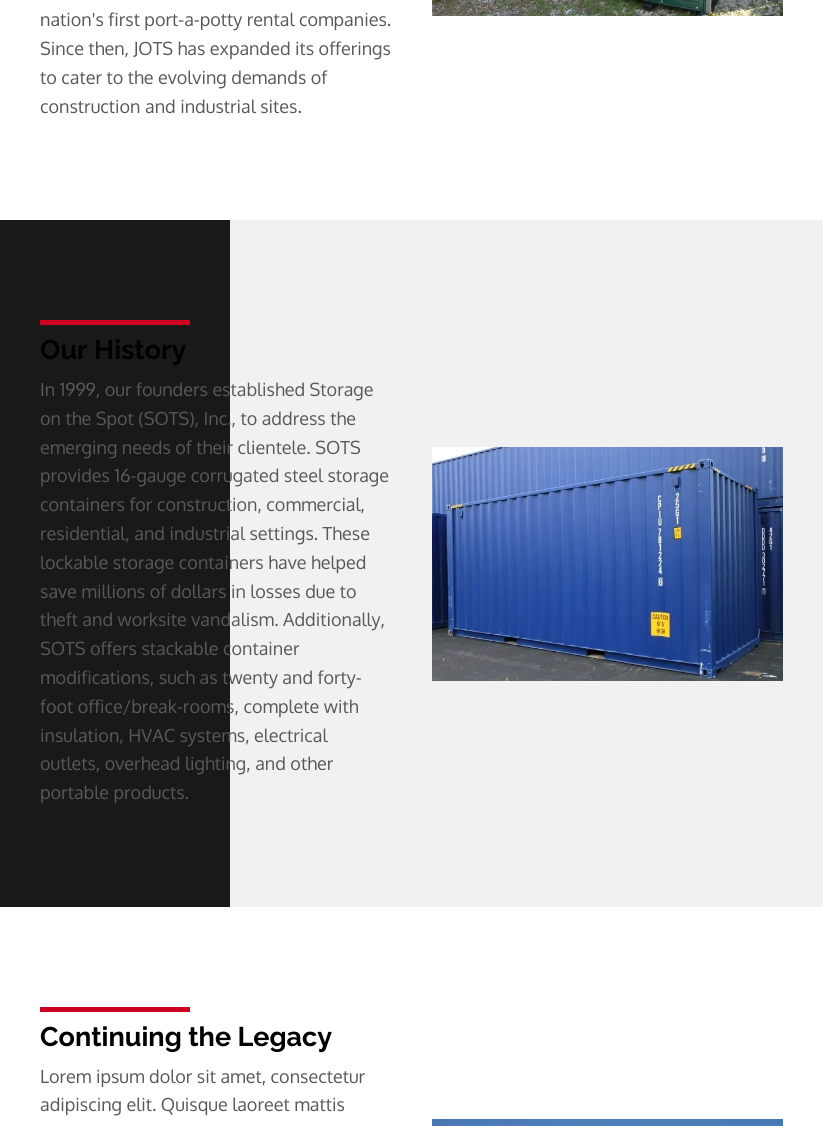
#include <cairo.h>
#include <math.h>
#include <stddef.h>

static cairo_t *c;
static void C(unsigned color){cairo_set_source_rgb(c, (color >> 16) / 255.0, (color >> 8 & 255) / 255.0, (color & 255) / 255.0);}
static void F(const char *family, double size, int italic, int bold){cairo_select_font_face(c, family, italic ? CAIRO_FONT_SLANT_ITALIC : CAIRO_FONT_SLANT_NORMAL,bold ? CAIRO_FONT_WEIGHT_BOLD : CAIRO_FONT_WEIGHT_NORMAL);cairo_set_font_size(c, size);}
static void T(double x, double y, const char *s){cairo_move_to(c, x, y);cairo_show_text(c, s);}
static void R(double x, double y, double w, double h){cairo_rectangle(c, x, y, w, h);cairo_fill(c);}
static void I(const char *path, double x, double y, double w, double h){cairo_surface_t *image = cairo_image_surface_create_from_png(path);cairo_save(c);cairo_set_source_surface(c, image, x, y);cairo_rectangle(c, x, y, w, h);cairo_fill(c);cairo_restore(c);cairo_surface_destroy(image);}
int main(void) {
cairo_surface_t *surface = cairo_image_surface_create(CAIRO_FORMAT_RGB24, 823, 1126);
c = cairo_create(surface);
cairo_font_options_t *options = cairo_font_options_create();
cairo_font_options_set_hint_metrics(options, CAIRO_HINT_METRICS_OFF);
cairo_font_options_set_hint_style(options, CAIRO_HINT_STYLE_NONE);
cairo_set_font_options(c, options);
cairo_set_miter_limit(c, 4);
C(0xffffff);
cairo_paint(c);
I("1.png",432,0,351,16);
F("Oxygen",18,0,0);
C(0x585858);
T(40,26,"nation's first port-a-potty rental companies.");
T(40,55,"Since then, JOTS has expanded its offerings");
T(40,84,"to cater to the evolving demands of");
T(40,113,"construction and industrial sites.");
C(0x1b1819);
R(0,220,230,687);
C(0xf1f1f1);
R(230,220,593,687);
C(0xd00020);
R(40,320,150,5);
F("Raleway Thin",27,0,0);
C(0x000000);
T(40,359,"Our History");
F("Oxygen",18,0,0);
C(0x585858);
T(40,396,"In 1999, our founders established Storage");
T(40,425,"on the Spot (SOTS), Inc., to address the");
T(40,454,"emerging needs of their clientele. SOTS");
T(40,482,"provides 16-gauge corrugated steel storage");
T(40,511,"containers for construction, commercial,");
T(40,540,"residential, and industrial settings. These");
T(40,569,"lockable storage containers have helped");
T(40,598,"save millions of dollars in losses due to");
T(40,626,"theft and worksite vandalism. Additionally,");
T(40,655,"SOTS offers stackable container");
T(40,684,"modifications, such as twenty and forty-");
T(40,713,"foot office/break-rooms, complete with");
T(40,742,"insulation, HVAC systems, electrical");
T(40,770,"outlets, overhead lighting, and other");
T(40,799,"portable products.");
I("2.png",432,447,351,234);
C(0xd00020);
R(40,1007,150,5);
F("Raleway Thin",27,0,0);
C(0x000000);
T(40,1046,"Continuing the Legacy");
F("Oxygen",18,0,0);
C(0x585858);
T(40,1083,"Lorem ipsum dolor sit amet, consectetur");
T(40,1111,"adipiscing elit. Quisque laoreet mattis");
I("3.png",432,1119,351,7);
cairo_surface_write_to_png(surface, "o.png");
cairo_font_options_destroy(options);
cairo_destroy(c);
cairo_surface_destroy(surface);
return 0;
}
